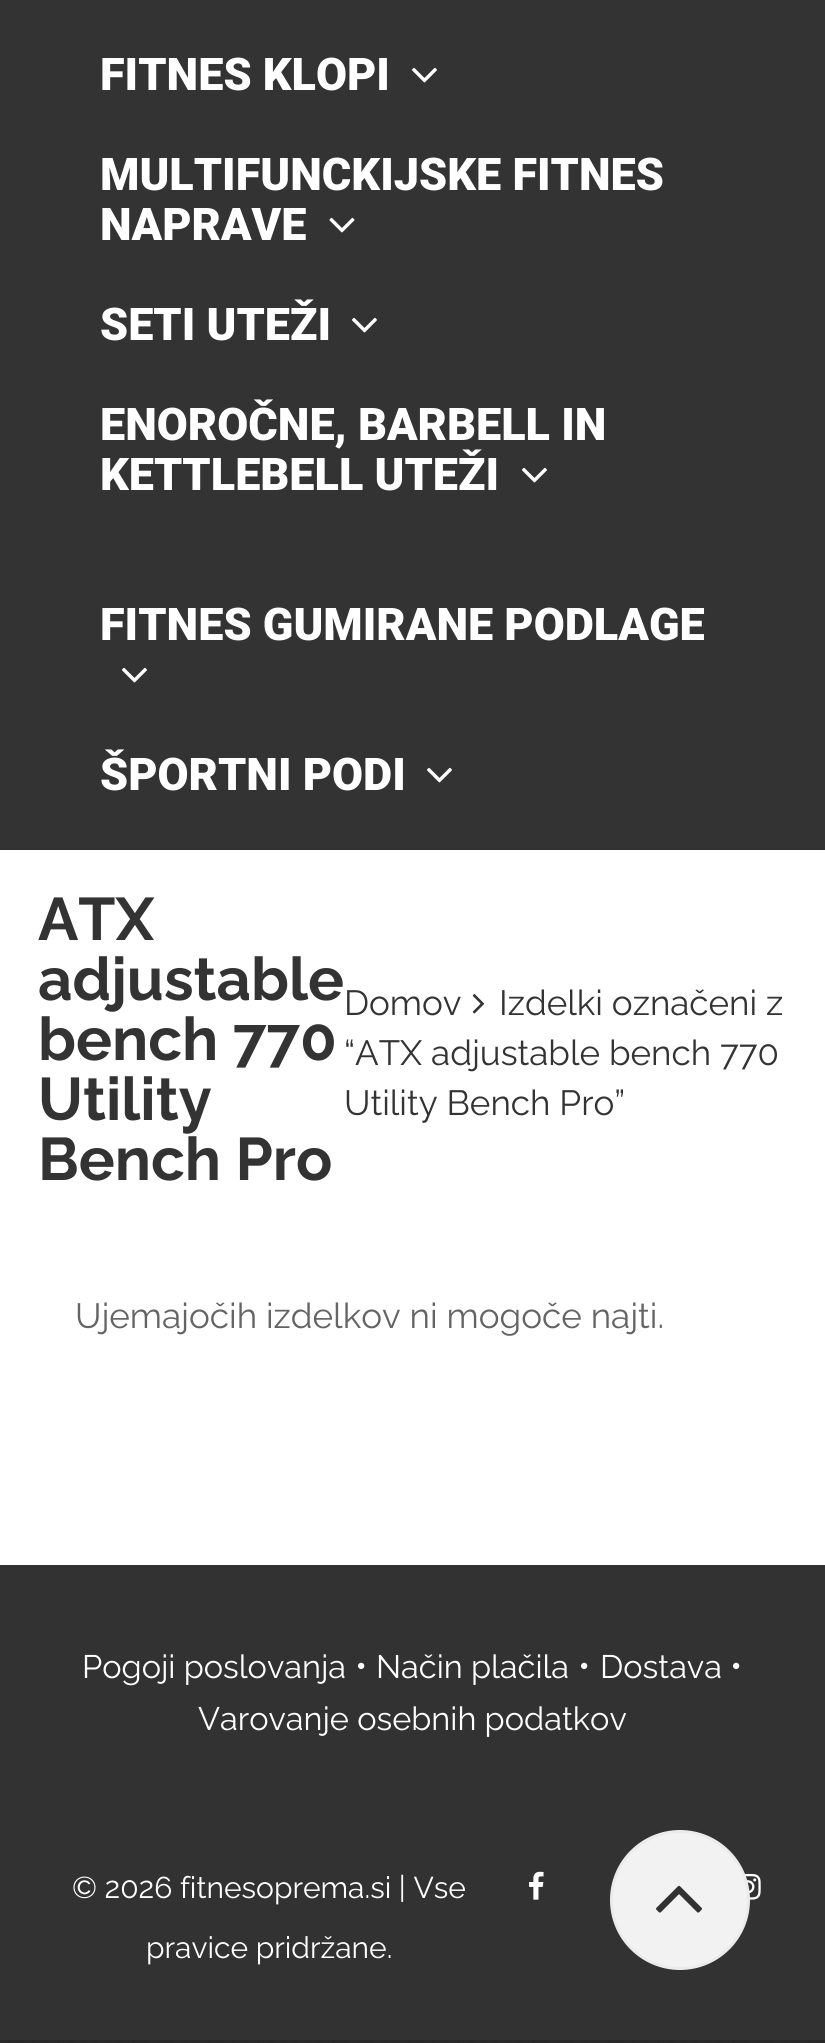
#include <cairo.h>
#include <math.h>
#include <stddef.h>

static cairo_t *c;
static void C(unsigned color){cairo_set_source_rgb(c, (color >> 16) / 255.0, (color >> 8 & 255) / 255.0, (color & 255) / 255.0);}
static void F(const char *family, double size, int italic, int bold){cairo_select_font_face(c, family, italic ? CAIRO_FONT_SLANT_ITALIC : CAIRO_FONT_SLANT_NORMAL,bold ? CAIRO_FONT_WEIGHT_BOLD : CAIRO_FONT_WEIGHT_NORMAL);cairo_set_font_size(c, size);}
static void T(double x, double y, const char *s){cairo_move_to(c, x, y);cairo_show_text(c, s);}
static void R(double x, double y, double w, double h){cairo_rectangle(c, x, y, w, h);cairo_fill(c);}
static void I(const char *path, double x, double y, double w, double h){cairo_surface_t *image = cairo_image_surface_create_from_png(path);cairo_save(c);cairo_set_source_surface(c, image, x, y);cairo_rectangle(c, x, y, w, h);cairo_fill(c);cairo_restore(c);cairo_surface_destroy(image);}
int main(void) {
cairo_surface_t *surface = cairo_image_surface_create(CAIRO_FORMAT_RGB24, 825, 2043);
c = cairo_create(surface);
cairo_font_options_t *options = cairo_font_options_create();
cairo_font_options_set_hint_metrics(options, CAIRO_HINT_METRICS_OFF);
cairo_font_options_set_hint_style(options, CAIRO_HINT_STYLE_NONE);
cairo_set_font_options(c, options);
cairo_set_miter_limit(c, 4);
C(0xffffff);
cairo_paint(c);
I("1.png",0,2040,825,3);
C(0x333333);
R(0,0,825,850);
F("Roboto Black",45,0,0);
C(0xffffff);
T(100,90,"FITNES KLOPI");
I("2.png",412,67,25,16);
T(100,190,"MULTIFUNCKIJSKE FITNES");
T(100,240,"NAPRAVE");
I("3.png",329,217,26,16);
T(100,340,"SETI UTEŽI");
I("2.png",352,317,25,16);
T(100,440,"ENOROČNE, BARBELL IN");
T(100,490,"KETTLEBELL UTEŽI");
I("2.png",522,467,25,16);
T(100,640,"FITNES GUMIRANE PODLAGE");
I("2.png",122,667,25,16);
T(100,790,"ŠPORTNI PODI");
I("2.png",427,767,25,16);
F("Raleway",60,0,1);
C(0x333333);
T(38,940,"ATX");
T(38,1000,"adjustable");
T(38,1060,"bench 770");
T(38,1120,"Utility");
T(38,1180,"Bench Pro");
F("Raleway",35,0,0);
T(344,1015,"Domov");
I("4.png",472,994,13,20);
T(499,1015,"Izdelki označeni z");
T(344,1065,"“ATX adjustable bench 770");
T(344,1115,"Utility Bench Pro”");
C(0x646464);
T(75,1328,"Ujemajočih izdelkov ni mogoče najti.");
C(0x323232);
R(0,1565,825,475);
F("Raleway",32.5,0,0);
C(0xffffff);
T(82,1678,"Pogoji poslovanja");
F("Raleway",35,0,0);
T(355,1678,"•");
F("Raleway",32.5,0,0);
T(376,1678,"Način plačila");
F("Raleway",35,0,0);
T(578,1678,"•");
F("Raleway",32.5,0,0);
T(600,1678,"Dostava");
F("Raleway",35,0,0);
T(730,1678,"•");
F("Raleway",32.5,0,0);
T(198,1730,"Varovanje osebnih podatkov");
F("Raleway",30,0,0);
T(72,1898,"© 2026 fitnesoprema.si | Vse");
T(146,1958,"pravice pridržane.");
I("5.png",529,1871,15,29);
I("6.png",745,1873,16,27);
C(0xf2f2f2);
cairo_arc(c,680,1900,68.5,0,2 * M_PI);
cairo_fill_preserve(c);
C(0xebebeb);
cairo_set_line_width(c,3);
cairo_stroke(c);
I("7.png",656,1885,46,28);
cairo_surface_write_to_png(surface, "o.png");
cairo_font_options_destroy(options);
cairo_destroy(c);
cairo_surface_destroy(surface);
return 0;
}
